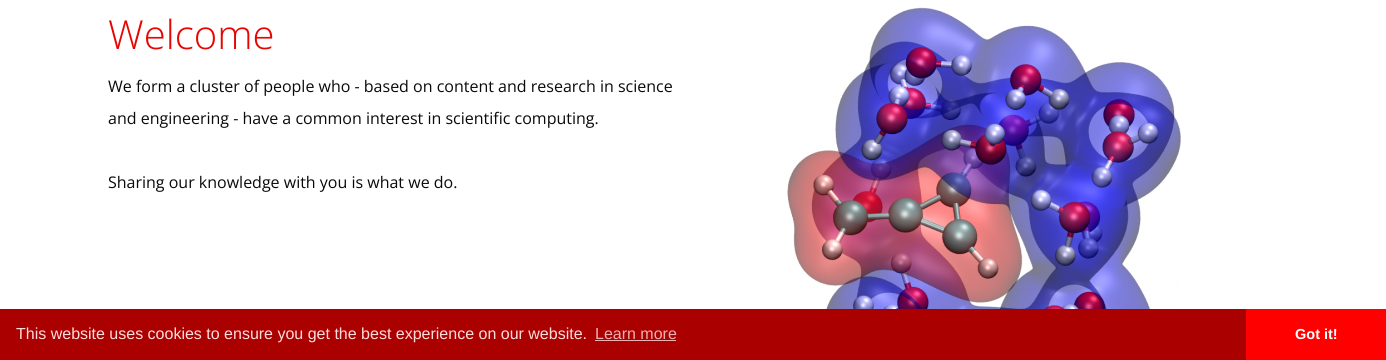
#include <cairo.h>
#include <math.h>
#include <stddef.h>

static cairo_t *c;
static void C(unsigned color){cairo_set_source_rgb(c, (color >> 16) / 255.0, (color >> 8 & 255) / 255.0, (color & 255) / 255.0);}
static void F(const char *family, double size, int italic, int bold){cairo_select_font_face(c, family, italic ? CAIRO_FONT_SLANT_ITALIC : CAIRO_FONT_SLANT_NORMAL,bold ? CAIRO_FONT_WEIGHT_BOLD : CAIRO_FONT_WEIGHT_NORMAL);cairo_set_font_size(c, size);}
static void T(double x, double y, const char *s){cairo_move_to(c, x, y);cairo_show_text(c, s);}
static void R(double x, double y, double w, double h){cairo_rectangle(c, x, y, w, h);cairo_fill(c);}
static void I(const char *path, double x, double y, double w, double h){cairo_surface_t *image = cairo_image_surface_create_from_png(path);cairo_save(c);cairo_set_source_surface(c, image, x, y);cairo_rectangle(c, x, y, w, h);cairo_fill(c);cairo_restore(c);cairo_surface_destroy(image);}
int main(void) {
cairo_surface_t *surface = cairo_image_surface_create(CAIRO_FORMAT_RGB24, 1386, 360);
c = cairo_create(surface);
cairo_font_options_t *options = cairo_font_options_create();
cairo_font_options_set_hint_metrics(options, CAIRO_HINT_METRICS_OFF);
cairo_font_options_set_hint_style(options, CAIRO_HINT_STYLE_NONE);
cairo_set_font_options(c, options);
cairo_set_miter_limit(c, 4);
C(0xffffff);
cairo_paint(c);
F("Open Sans Light",40,0,0);
C(0xe70500);
T(108,49,"Welcome");
F("Open Sans",16,0,0);
C(0x0a0a0a);
T(108,92,"We form a cluster of people who - based on content and research in science");
T(108,124,"and engineering - have a common interest in scientific computing.");
T(108,188,"Sharing our knowledge with you is what we do.");
I("1.png",787,7,394,302);
C(0xaa0000);
R(0,309,1246,51);
F("Liberation Sans",16,0,0);
C(0xffdddd);
T(16,339,"This website uses cookies to ensure you get the best experience on our website.");
C(0xeeb1b1);
T(595,339,"Learn more");
R(595,340,81,1);
C(0xff0000);
R(1246,309,140,51);
F("Liberation Sans",14.5,0,1);
C(0xffffff);
T(1295,339,"Got it!");
cairo_surface_write_to_png(surface, "o.png");
cairo_font_options_destroy(options);
cairo_destroy(c);
cairo_surface_destroy(surface);
return 0;
}
